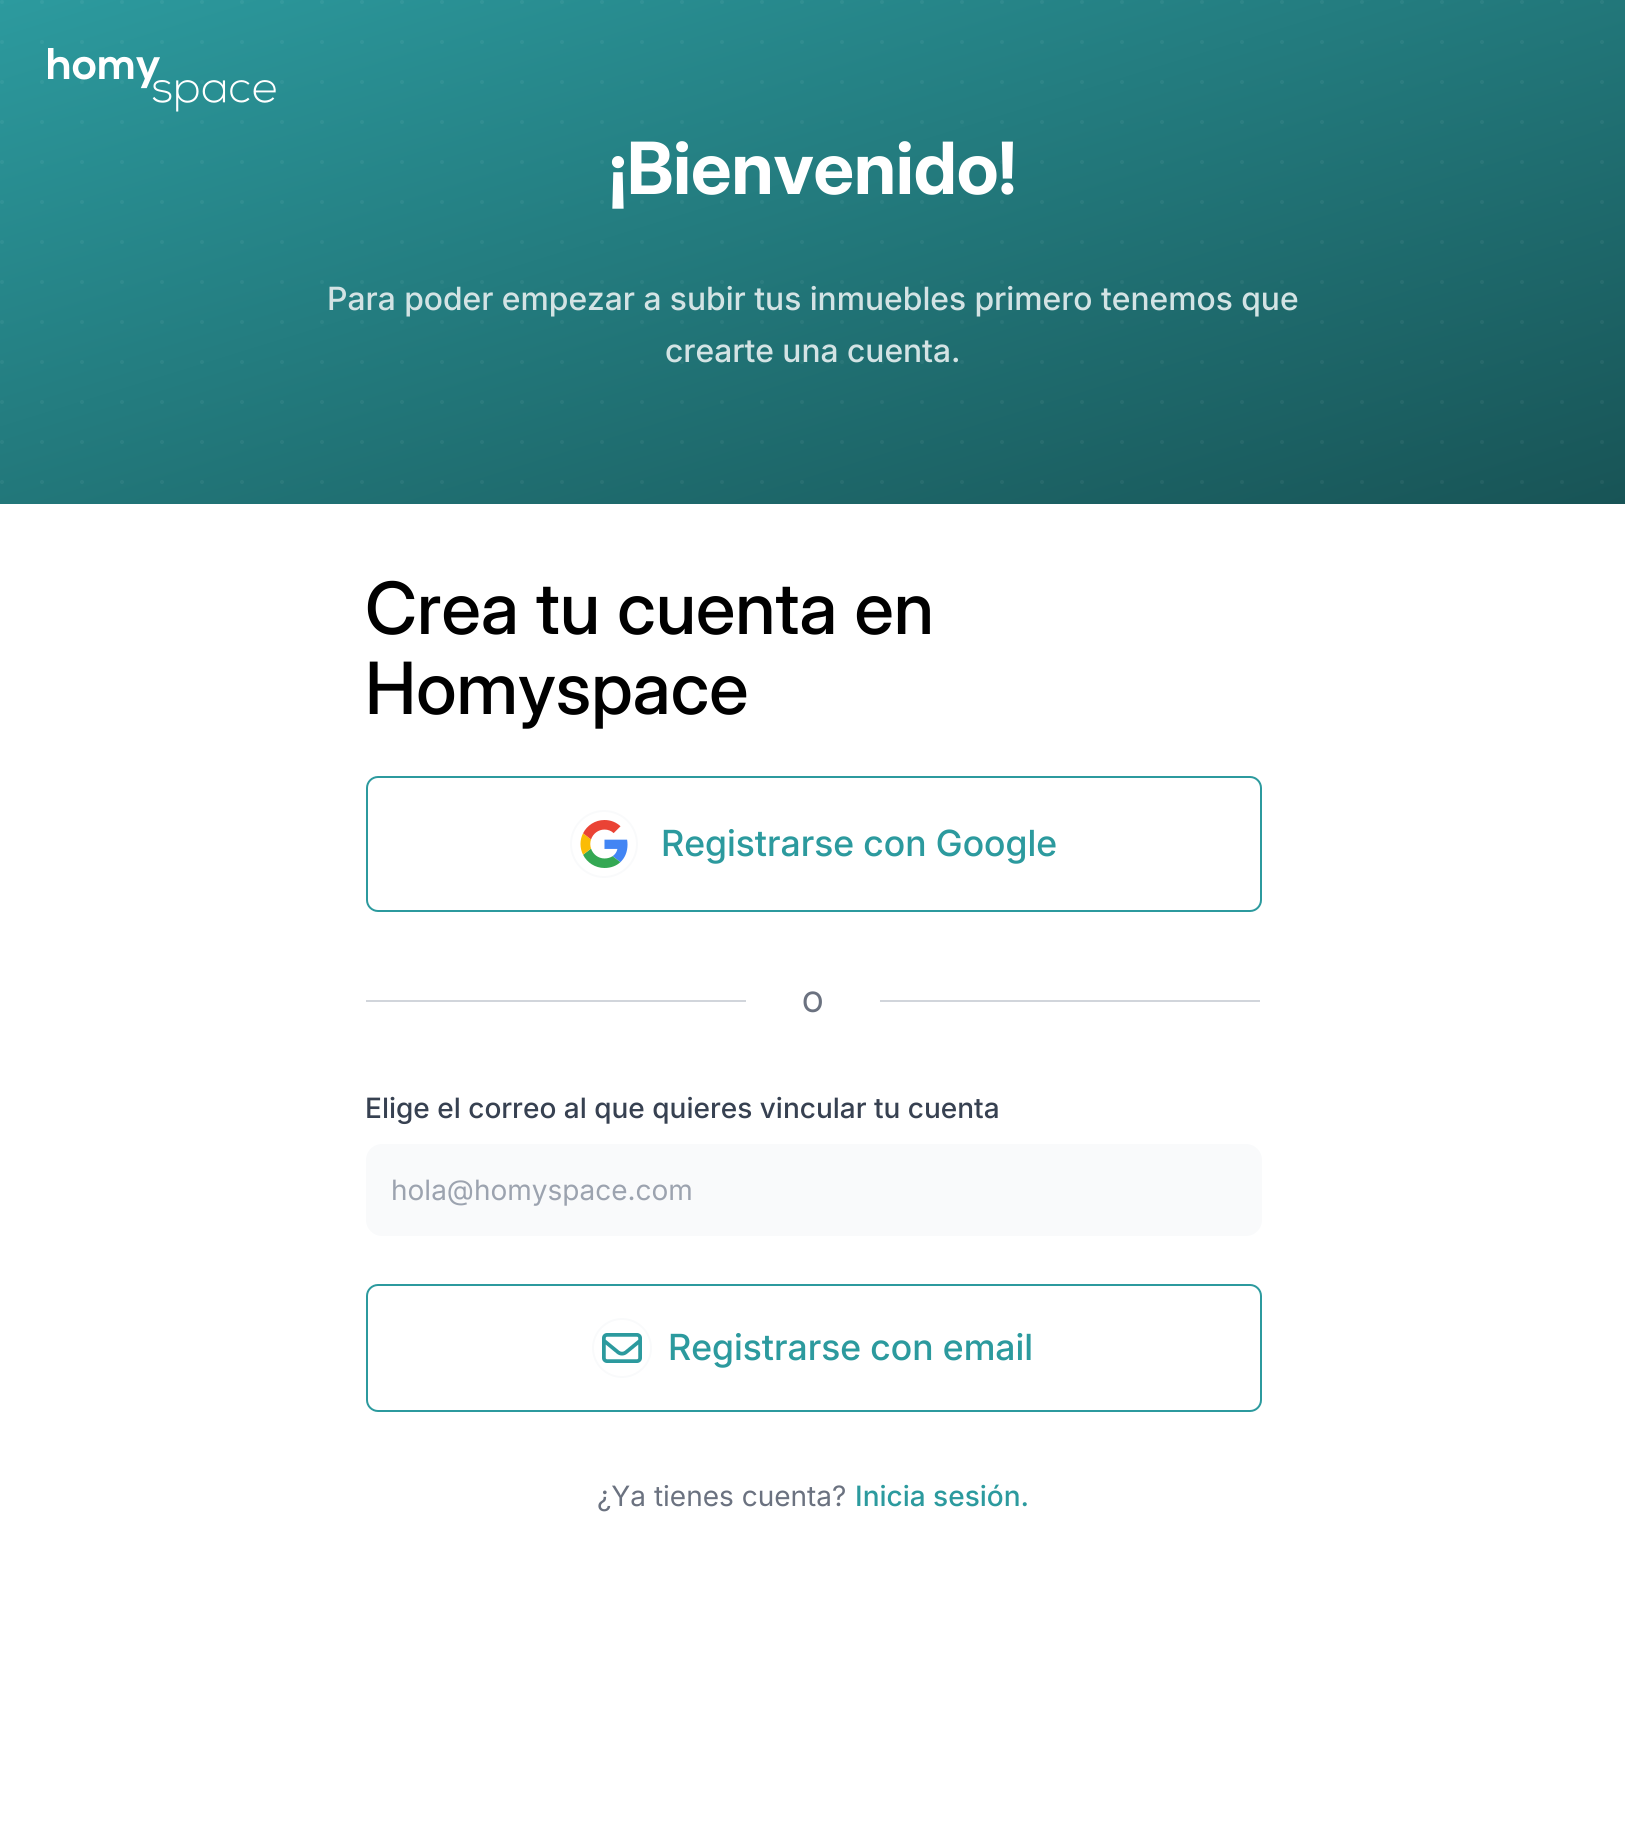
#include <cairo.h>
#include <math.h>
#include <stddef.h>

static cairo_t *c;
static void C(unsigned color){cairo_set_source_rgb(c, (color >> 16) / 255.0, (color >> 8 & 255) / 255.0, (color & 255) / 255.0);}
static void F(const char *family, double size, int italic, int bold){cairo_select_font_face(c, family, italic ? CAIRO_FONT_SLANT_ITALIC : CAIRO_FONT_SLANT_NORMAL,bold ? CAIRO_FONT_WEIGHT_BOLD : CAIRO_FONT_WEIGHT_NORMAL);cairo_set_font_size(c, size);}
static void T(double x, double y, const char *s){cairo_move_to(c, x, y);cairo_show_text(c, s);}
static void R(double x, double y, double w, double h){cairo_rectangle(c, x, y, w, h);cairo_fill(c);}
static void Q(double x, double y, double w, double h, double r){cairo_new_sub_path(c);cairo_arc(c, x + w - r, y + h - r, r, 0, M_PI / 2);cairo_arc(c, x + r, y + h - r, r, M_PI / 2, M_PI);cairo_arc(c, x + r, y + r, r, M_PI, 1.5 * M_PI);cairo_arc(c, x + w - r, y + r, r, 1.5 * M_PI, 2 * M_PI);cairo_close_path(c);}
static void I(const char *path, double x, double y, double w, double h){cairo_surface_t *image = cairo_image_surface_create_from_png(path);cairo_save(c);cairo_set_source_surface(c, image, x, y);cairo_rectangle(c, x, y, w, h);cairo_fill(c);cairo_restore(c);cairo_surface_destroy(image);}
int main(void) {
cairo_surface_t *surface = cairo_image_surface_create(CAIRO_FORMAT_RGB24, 1625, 1826);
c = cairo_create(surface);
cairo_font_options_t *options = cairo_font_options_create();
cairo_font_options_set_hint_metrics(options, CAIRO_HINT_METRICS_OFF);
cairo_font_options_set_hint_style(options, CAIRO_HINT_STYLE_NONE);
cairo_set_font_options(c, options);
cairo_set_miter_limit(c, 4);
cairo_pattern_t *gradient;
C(0xffffff);
cairo_paint(c);
gradient = cairo_pattern_create_linear(670,-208,956,712);
cairo_pattern_add_color_stop_rgba(gradient,0,0.173,0.604,0.62,1);
cairo_pattern_add_color_stop_rgba(gradient,.5,0.133,0.467,0.478,1);
cairo_pattern_add_color_stop_rgba(gradient,1,0.094,0.329,0.337,1);
cairo_set_source(c,gradient);
cairo_pattern_destroy(gradient);
R(0,0,1625,504);
cairo_new_path(c);
cairo_move_to(c,2,82);
cairo_line_to(c,1602.4,82);
cairo_set_source_rgba(c,1,1,1,0.05);
cairo_set_line_width(c,4);
cairo_set_line_cap(c,CAIRO_LINE_CAP_ROUND);
cairo_set_dash(c,(double[]){0,40},2,0);
cairo_stroke(c);
I("1.png",48,48,228,64);
cairo_new_path(c);
cairo_move_to(c,2,2);
cairo_line_to(c,1602.4,2);
cairo_stroke(c);
cairo_new_path(c);
cairo_move_to(c,2,42);
cairo_line_to(c,1602.4,42);
cairo_stroke(c);
cairo_new_path(c);
cairo_move_to(c,2,122);
cairo_line_to(c,1602.4,122);
cairo_stroke(c);
cairo_new_path(c);
cairo_move_to(c,2,162);
cairo_line_to(c,1602.4,162);
cairo_stroke(c);
cairo_new_path(c);
cairo_move_to(c,2,202);
cairo_line_to(c,1602.4,202);
cairo_stroke(c);
cairo_new_path(c);
cairo_move_to(c,2,242);
cairo_line_to(c,1602.4,242);
cairo_stroke(c);
cairo_new_path(c);
cairo_move_to(c,2,282);
cairo_line_to(c,1602.4,282);
cairo_stroke(c);
cairo_new_path(c);
cairo_move_to(c,2,322);
cairo_line_to(c,1602.4,322);
cairo_stroke(c);
cairo_new_path(c);
cairo_move_to(c,2,362);
cairo_line_to(c,1602.4,362);
cairo_stroke(c);
cairo_new_path(c);
cairo_move_to(c,2,402);
cairo_line_to(c,1602.4,402);
cairo_stroke(c);
cairo_new_path(c);
cairo_move_to(c,2,442);
cairo_line_to(c,1602.4,442);
cairo_stroke(c);
cairo_new_path(c);
cairo_move_to(c,2,482);
cairo_line_to(c,1602.4,482);
cairo_stroke(c);
F("Inter",72,0,1);
C(0xffffff);
T(609,194,"¡Bienvenido!");
F("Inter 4 Medium",32,0,0);
C(0xd3e3e4);
T(327,310,"Para poder empezar a subir tus inmuebles primero tenemos que");
T(665,362,"crearte una cuenta.");
F("Inter Medium",72,0,0);
C(0x000000);
T(365,634,"Crea tu cuenta en");
T(365,714,"Homyspace");
Q(367,777,894,134,11);
C(0x2c9a9e);
cairo_set_line_width(c,2);
cairo_set_line_cap(c,CAIRO_LINE_CAP_BUTT);
cairo_set_dash(c,NULL,0,0);
cairo_stroke(c);
cairo_arc(c,604,844,33,0,2 * M_PI);
C(0xf9fafb);
cairo_stroke(c);
I("2.png",580,820,48,48);
F("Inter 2 Medium",36,0,0);
C(0x2c9a9e);
T(661,856,"Registrarse con Google");
C(0xd1d5db);
R(366,1000,380,2);
F("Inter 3 Medium",28,0,0);
C(0x6b7280);
T(802,1012,"O");
C(0xd1d5db);
R(880,1000,380,2);
C(0x374151);
T(365,1118,"Elige el correo al que quieres vincular tu cuenta");
C(0xf9fafb);
Q(366,1144,896,92,16);
cairo_fill(c);
F("Inter",28,0,0);
C(0x9ca3af);
T(391,1200,"hola@homyspace.com");
Q(367,1285,894,126,11);
C(0x2c9a9e);
cairo_stroke(c);
cairo_arc(c,622,1348,29,0,2 * M_PI);
C(0xf9fafb);
cairo_stroke(c);
I("3.png",602,1333,40,30);
F("Inter 2 Medium",36,0,0);
C(0x2c9a9e);
T(668,1360,"Registrarse con email");
F("Inter",28,0,0);
C(0x6b7280);
T(597,1506,"¿Ya tienes cuenta?");
F("Inter 3 Medium",28,0,0);
C(0x2c9a9e);
T(855,1506,"Inicia sesión.");
cairo_surface_write_to_png(surface, "o.png");
cairo_font_options_destroy(options);
cairo_destroy(c);
cairo_surface_destroy(surface);
return 0;
}
